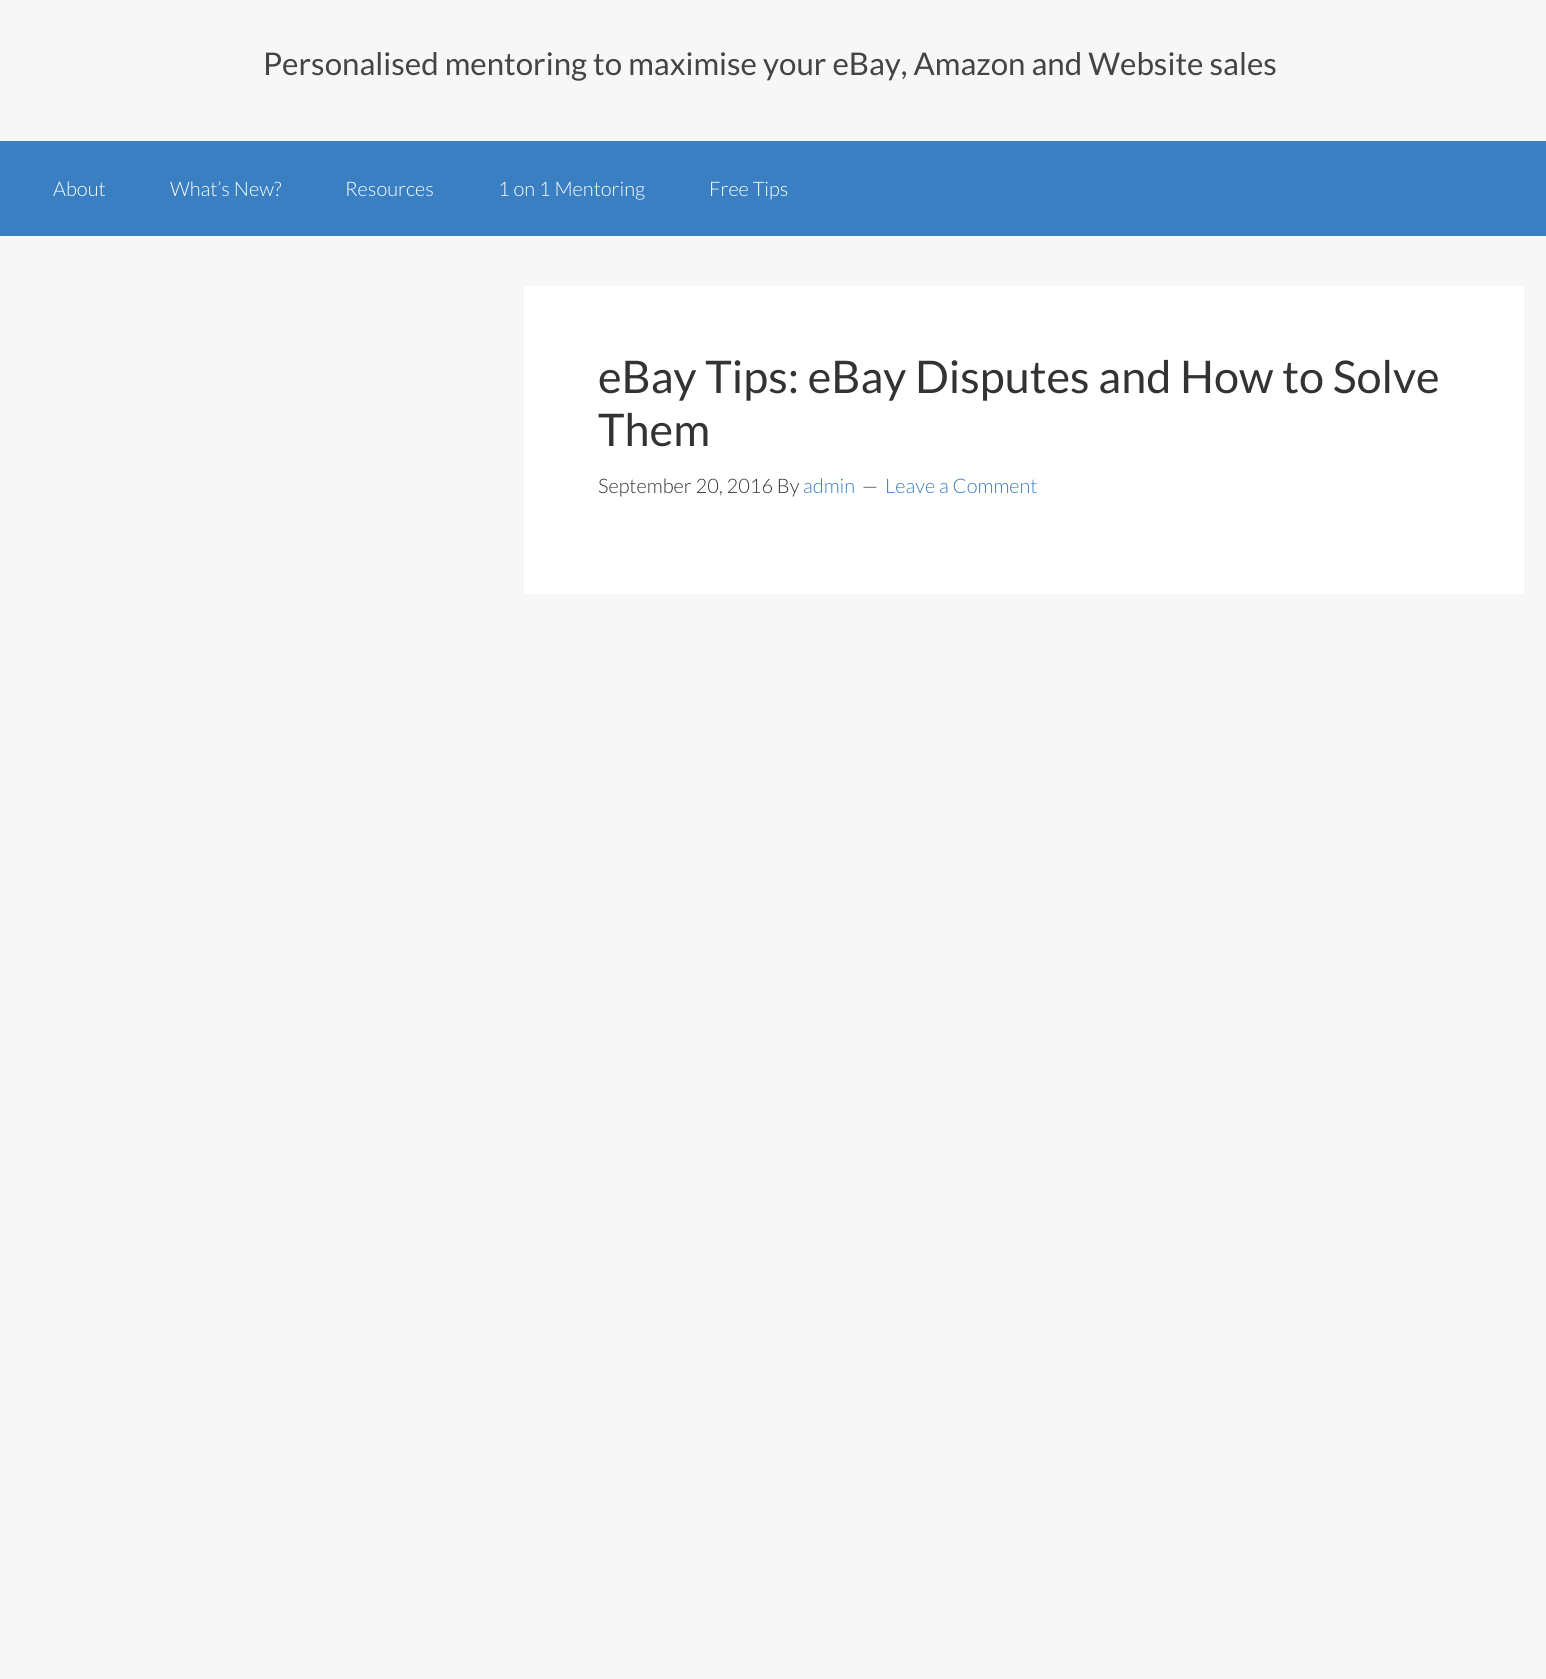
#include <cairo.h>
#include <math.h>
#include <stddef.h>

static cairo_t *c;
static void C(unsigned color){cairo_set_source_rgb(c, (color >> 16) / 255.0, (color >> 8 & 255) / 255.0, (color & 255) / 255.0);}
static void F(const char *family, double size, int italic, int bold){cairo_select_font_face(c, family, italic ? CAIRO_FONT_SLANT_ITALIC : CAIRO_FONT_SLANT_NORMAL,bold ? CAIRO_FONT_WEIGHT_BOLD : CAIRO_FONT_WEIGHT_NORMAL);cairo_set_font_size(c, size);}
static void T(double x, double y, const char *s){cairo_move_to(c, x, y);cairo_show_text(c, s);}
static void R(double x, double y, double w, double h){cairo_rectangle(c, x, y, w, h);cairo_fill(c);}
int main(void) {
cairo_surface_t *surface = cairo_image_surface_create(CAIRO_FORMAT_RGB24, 1546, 1679);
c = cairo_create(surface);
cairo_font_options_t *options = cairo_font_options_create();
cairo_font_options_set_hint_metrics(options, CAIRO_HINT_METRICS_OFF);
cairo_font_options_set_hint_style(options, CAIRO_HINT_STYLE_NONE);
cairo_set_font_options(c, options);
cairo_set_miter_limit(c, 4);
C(0xf7f7f7);
cairo_paint(c);
F("Lato",31.25,0,0);
C(0x444444);
T(263,75,"Personalised mentoring to maximise your eBay, Amazon and Website sales");
C(0x397fc1);
R(0,141,1546,95);
F("Lato Light",20,0,0);
C(0xffffff);
T(53,196,"About");
T(170,196,"What’s New?");
T(345,196,"Resources");
T(498,196,"1 on 1 Mentoring");
T(709,196,"Free Tips");
R(524,286,1000,308);
F("Lato",45,0,0);
C(0x333333);
T(598,393,"eBay Tips: eBay Disputes and How to Solve");
T(598,446,"Them");
F("Lato Light",20,0,0);
T(598,493,"September 20, 2016 By");
C(0x387ec2);
T(803,493,"admin");
C(0x333333);
T(862,493,"—");
C(0x387ec2);
T(885,493,"Leave a Comment");
cairo_surface_write_to_png(surface, "o.png");
cairo_font_options_destroy(options);
cairo_destroy(c);
cairo_surface_destroy(surface);
return 0;
}
